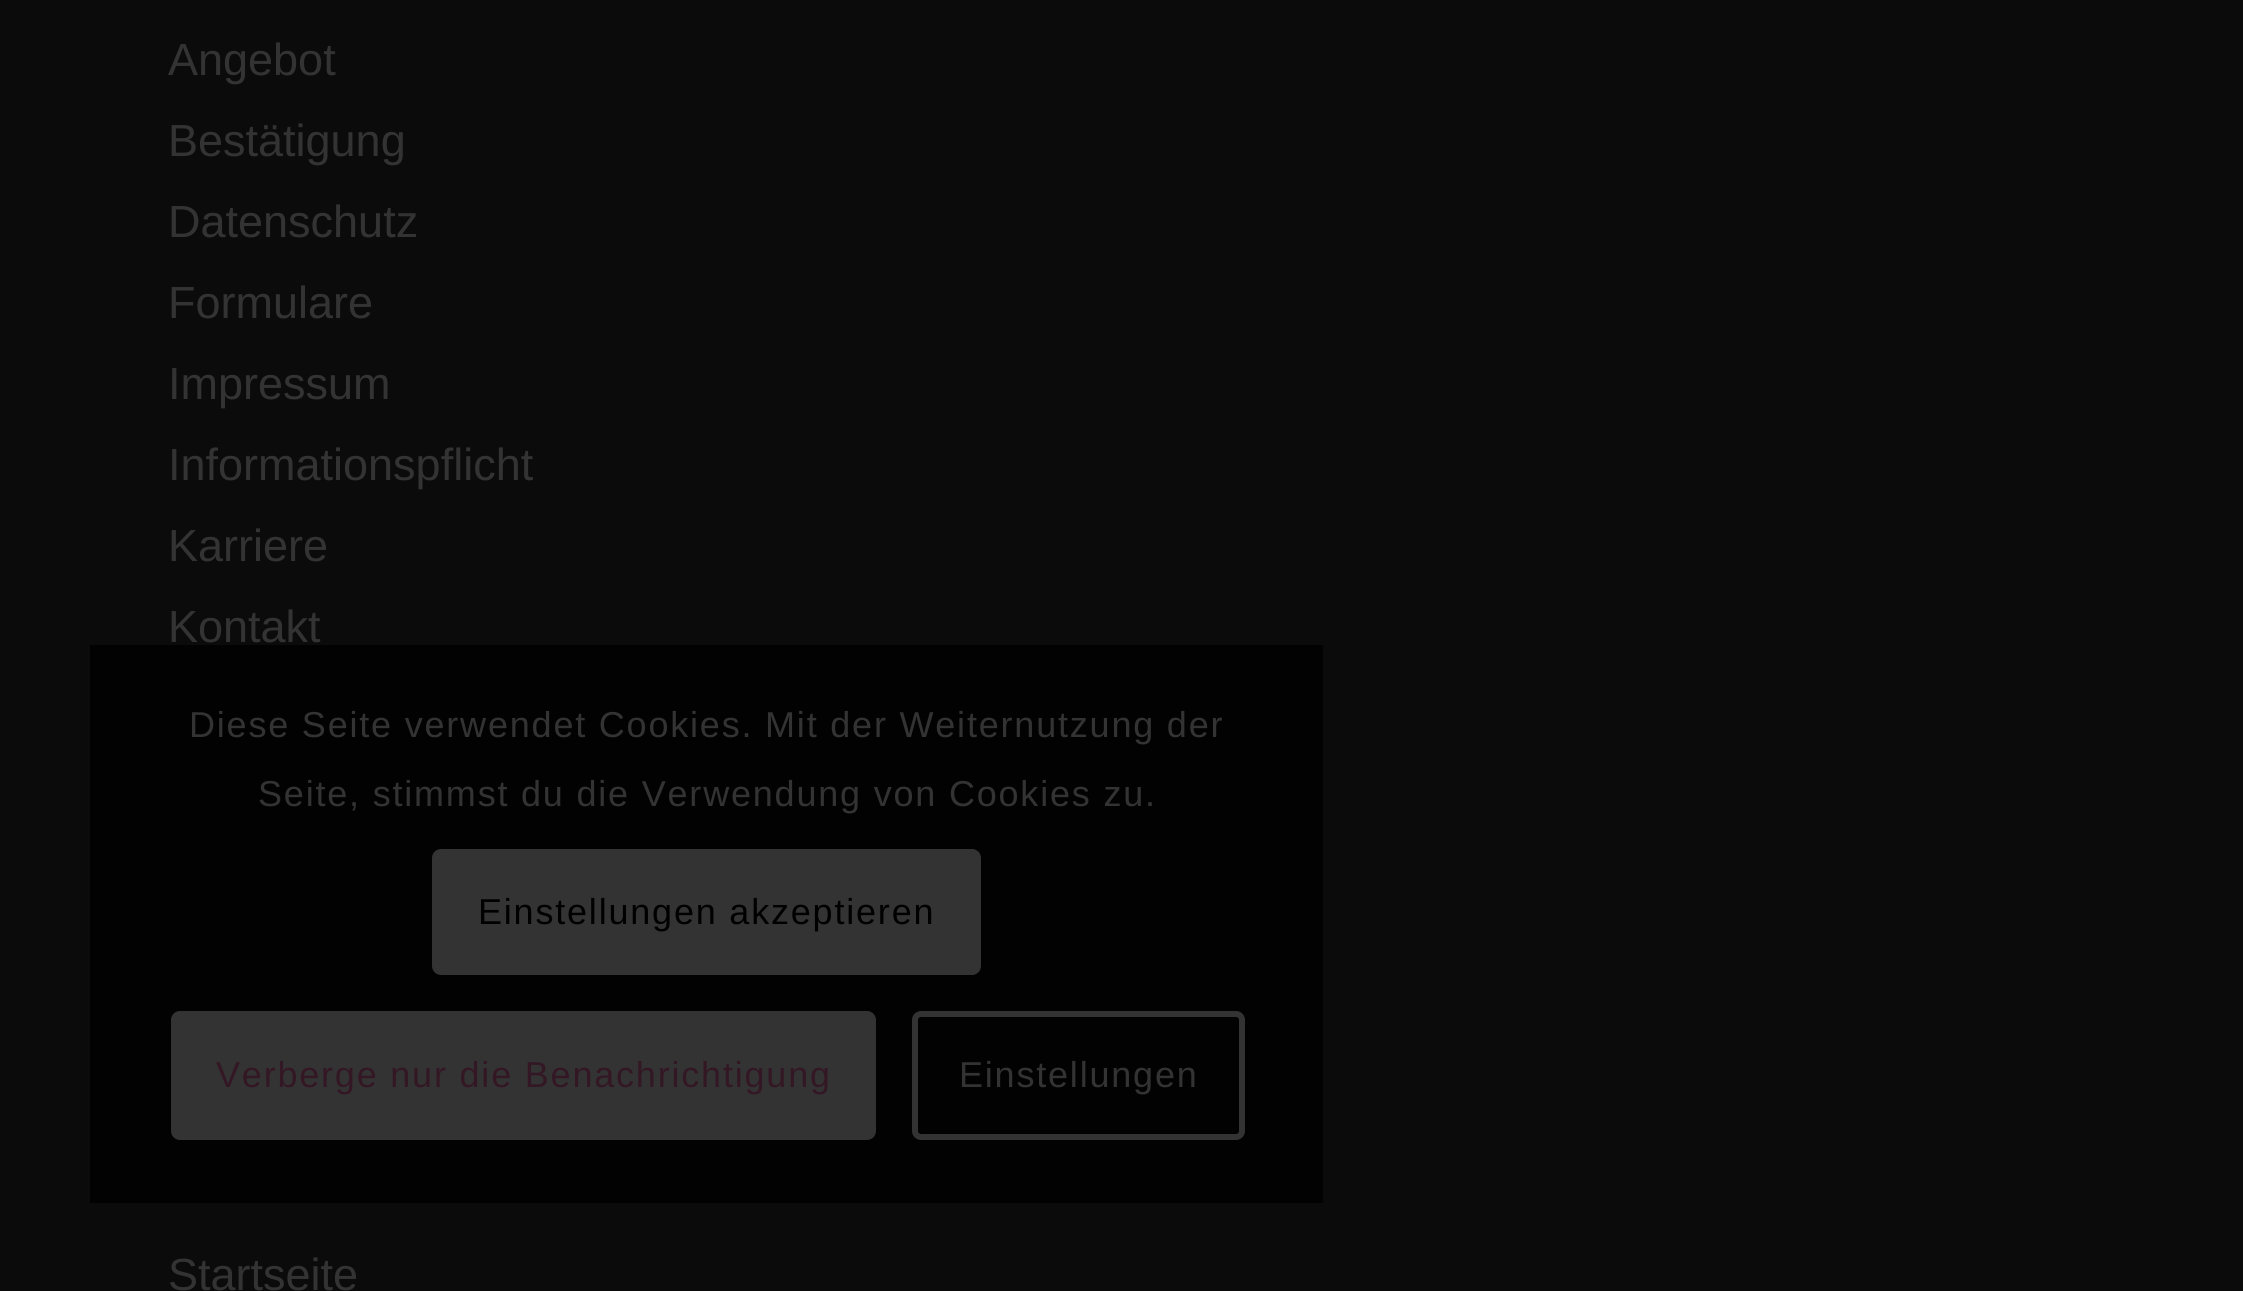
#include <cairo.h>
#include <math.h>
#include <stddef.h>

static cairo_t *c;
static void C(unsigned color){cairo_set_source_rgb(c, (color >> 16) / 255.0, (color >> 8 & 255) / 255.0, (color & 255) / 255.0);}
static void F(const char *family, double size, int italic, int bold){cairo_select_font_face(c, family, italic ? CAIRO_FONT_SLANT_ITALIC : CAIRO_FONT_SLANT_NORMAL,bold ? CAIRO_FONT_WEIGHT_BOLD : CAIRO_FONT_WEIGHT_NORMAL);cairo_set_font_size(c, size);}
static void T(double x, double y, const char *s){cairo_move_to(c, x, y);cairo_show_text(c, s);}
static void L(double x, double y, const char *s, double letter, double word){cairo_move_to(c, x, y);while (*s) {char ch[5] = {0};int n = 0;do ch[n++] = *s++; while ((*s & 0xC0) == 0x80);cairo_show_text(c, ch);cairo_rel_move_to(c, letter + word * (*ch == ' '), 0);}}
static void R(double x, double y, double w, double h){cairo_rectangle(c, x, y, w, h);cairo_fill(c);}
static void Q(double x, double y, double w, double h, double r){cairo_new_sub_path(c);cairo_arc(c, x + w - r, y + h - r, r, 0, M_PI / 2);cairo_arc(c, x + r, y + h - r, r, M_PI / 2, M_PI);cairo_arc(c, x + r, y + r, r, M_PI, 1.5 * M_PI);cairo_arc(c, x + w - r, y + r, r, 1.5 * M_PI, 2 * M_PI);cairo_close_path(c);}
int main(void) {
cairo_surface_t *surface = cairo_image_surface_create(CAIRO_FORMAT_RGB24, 2243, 1291);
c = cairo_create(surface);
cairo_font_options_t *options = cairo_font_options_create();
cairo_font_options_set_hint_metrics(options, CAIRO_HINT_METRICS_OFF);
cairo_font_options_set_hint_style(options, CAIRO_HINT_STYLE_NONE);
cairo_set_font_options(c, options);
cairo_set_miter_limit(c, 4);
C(0x0b0b0c);
cairo_paint(c);
F("Liberation Sans",45,0,0);
C(0x333333);
T(168,75,"Angebot");
T(168,156,"Bestätigung");
T(168,237,"Datenschutz");
T(168,318,"Formulare");
T(168,399,"Impressum");
T(168,480,"Informationspflicht");
T(168,561,"Karriere");
T(168,642,"Kontakt");
T(168,1290,"Startseite");
cairo_set_source_rgba(c,0,0,0,0.85);
R(90,645,1233,558);
F("Liberation Sans",36,0,0);
C(0x333333);
L(189,737,"Diese Seite verwendet Cookies. Mit der Weiternutzung der",1.8,0);
L(258,806,"Seite, stimmst du die Verwendung von Cookies zu.",1.8,0);
Q(432,849,549,126,9);
cairo_fill(c);
C(0x000000);
L(478,924,"Einstellungen akzeptieren",1.8,0);
C(0x333333);
Q(174,1014,699,123,6);
cairo_fill_preserve(c);
cairo_set_line_width(c,6);
cairo_stroke(c);
C(0x331724);
L(216,1087,"Verberge nur die Benachrichtigung",1.8,0);
Q(915,1014,327,123,6);
C(0x333333);
cairo_stroke(c);
L(959,1087,"Einstellungen",1.8,0);
cairo_surface_write_to_png(surface, "o.png");
cairo_font_options_destroy(options);
cairo_destroy(c);
cairo_surface_destroy(surface);
return 0;
}
